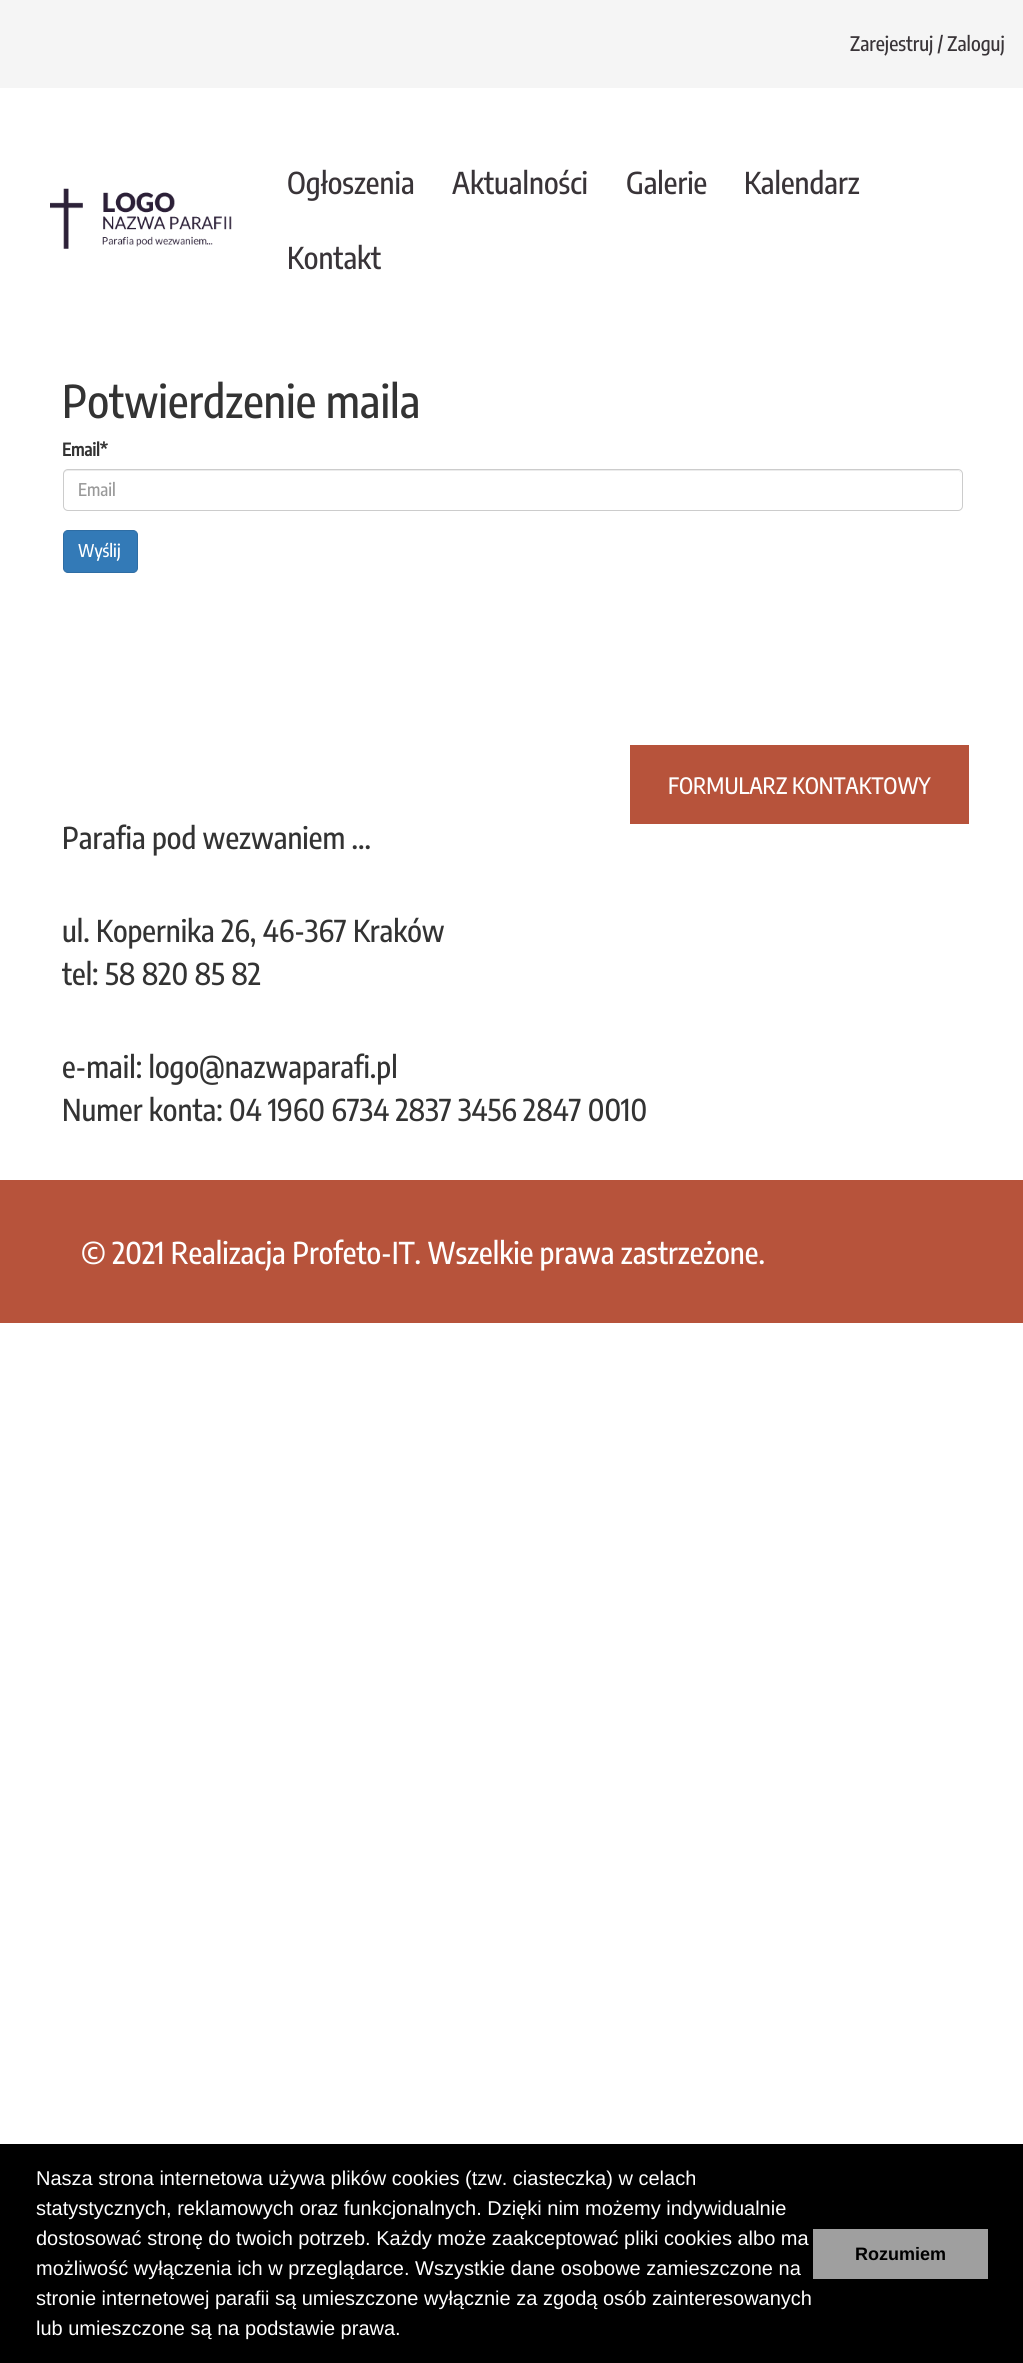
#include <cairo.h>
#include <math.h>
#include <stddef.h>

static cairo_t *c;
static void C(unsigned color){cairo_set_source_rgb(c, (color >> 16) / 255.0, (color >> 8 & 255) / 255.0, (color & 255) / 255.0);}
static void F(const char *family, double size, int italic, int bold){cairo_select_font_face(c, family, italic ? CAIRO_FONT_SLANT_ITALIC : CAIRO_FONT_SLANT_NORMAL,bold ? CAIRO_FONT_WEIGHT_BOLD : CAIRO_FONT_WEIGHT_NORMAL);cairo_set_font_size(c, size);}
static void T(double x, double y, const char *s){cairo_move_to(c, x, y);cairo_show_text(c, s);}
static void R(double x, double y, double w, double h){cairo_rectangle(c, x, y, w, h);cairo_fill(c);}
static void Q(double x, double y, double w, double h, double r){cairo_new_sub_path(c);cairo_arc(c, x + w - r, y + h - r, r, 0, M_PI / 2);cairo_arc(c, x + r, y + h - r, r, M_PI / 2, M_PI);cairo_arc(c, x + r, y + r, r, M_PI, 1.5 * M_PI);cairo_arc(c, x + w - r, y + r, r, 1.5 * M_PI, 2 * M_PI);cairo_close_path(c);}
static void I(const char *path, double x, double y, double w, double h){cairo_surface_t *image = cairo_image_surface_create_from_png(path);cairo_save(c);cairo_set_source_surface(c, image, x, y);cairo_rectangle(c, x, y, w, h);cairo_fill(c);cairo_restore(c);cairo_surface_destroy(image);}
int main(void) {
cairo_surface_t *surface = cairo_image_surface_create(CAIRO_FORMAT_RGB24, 1023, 2363);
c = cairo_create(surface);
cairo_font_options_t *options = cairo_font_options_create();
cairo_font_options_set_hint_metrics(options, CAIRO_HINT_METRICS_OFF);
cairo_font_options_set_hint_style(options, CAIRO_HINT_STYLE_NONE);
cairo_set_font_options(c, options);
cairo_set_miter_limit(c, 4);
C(0xffffff);
cairo_paint(c);
C(0xf5f5f5);
R(0,0,1023,88);
F("Encode Sans Condensed Medium",20,0,0);
C(0x393438);
T(850,51,"Zarejestruj / Zaloguj");
I("1.png",50,188,182,61);
F("Encode Sans Condensed Medium",30,0,0);
T(287,194,"Ogłoszenia");
T(452,194,"Aktualności");
T(626,194,"Galerie");
T(744,194,"Kalendarz");
T(287,269,"Kontakt");
F("Encode Sans Condensed Medium",45,0,0);
C(0x333333);
T(62,418,"Potwierdzenie maila");
F("Encode Sans Condensed",17.5,0,1);
T(62,456,"Email*");
C(0xececec);
cairo_new_path(c);
cairo_move_to(c,68,471);
cairo_line_to(c,958,471);
cairo_curve_to(c,960,471,961,473,961,475);
cairo_curve_to(c,961,472,960,470,957,470);
cairo_line_to(c,68,470);
cairo_curve_to(c,65,470,64,472,64,475);
cairo_curve_to(c,64,473,65,471,68,471);
cairo_close_path(c);
cairo_fill(c);
Q(63.5,469.5,899,41,4.5);
C(0xcccccc);
cairo_set_line_width(c,1);
cairo_stroke(c);
F("Encode Sans Condensed Medium",17.5,0,0);
C(0x999999);
T(78,496,"Email");
C(0x337ab7);
Q(63.5,530.5,74,42,4.5);
cairo_fill_preserve(c);
C(0x2e6da4);
cairo_stroke(c);
C(0xffffff);
T(78,557,"Wyślij");
C(0xb7533b);
R(630,745,339,79);
F("Encode Sans Condensed Medium",22.5,0,0);
C(0xffffff);
T(668,794,"FORMULARZ KONTAKTOWY");
F("Encode Sans Condensed Medium",30,0,0);
C(0x333333);
T(62,849,"Parafia pod wezwaniem ...");
T(62,942,"ul. Kopernika 26, 46-367 Kraków");
T(62,985,"tel: 58 820 85 82");
T(62,1078,"e-mail: logo@nazwaparafi.pl");
T(62,1121,"Numer konta: 04 1960 6734 2837 3456 2847 0010");
C(0xb7533b);
R(0,1180,1023,143);
C(0xffffff);
T(81,1264,"© 2021 Realizacja Profeto-IT. Wszelkie prawa zastrzeżone.");
C(0x000000);
R(0,2144,1023,219);
F("Liberation Sans",20,0,0);
C(0xffffff);
T(36,2185,"Nasza strona internetowa używa plików cookies (tzw. ciasteczka) w celach");
T(36,2215,"statystycznych, reklamowych oraz funkcjonalnych. Dzięki nim możemy indywidualnie");
T(36,2245,"dostosować stronę do twoich potrzeb. Każdy może zaakceptować pliki cookies albo ma");
T(36,2275,"możliwość wyłączenia ich w przeglądarce. Wszystkie dane osobowe zamieszczone na");
T(36,2305,"stronie internetowej parafii są umieszczone wyłącznie za zgodą osób zainteresowanych");
T(36,2335,"lub umieszczone są na podstawie prawa.");
C(0x9f9f9f);
R(813,2229,175,50);
F("Liberation Sans",18,0,1);
C(0x000000);
T(855,2260,"Rozumiem");
cairo_surface_write_to_png(surface, "o.png");
cairo_font_options_destroy(options);
cairo_destroy(c);
cairo_surface_destroy(surface);
return 0;
}
